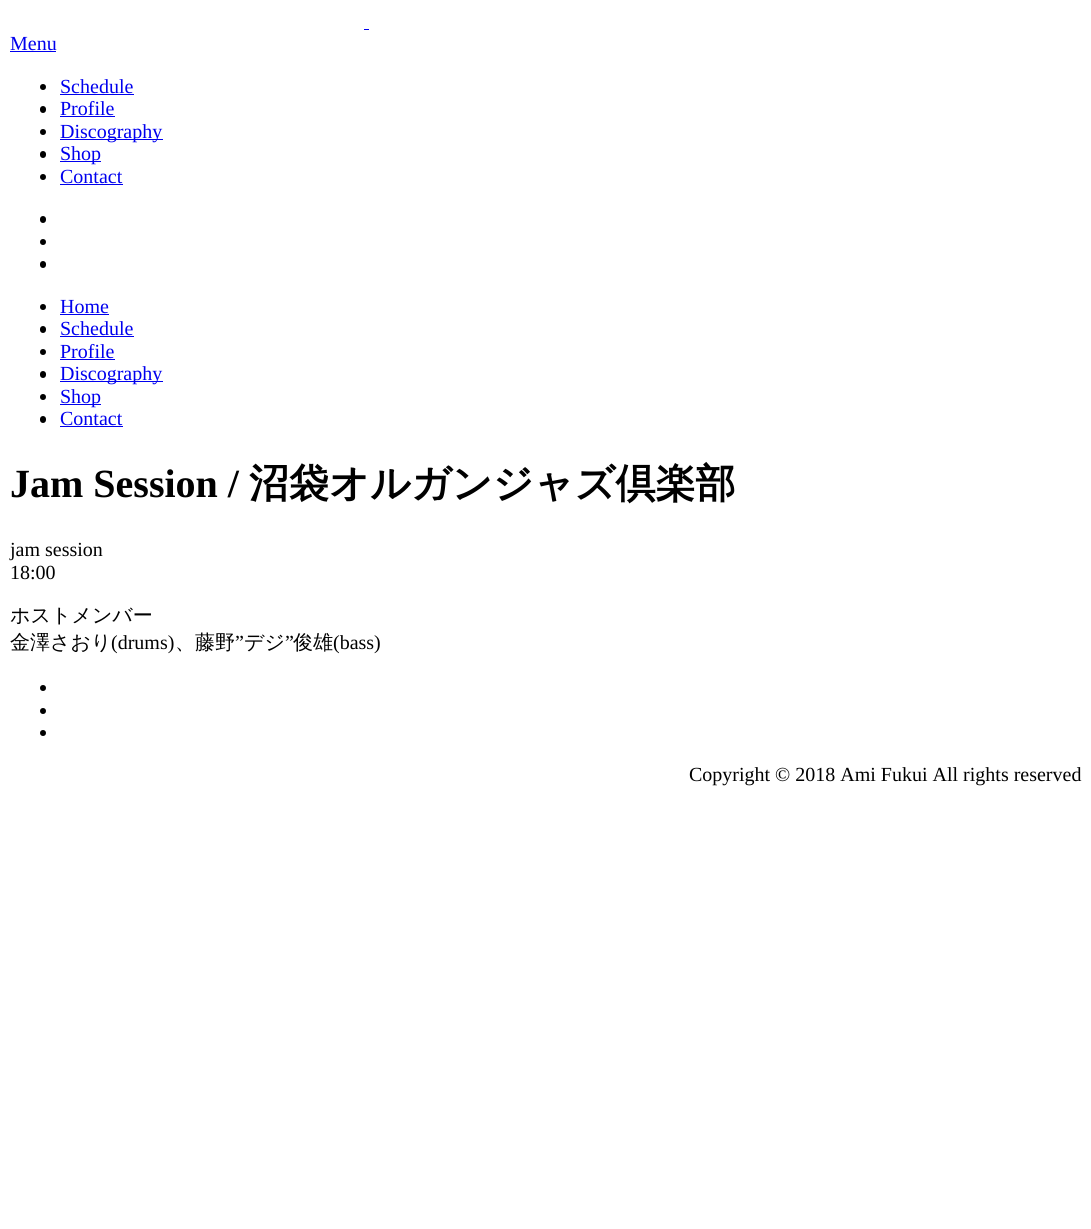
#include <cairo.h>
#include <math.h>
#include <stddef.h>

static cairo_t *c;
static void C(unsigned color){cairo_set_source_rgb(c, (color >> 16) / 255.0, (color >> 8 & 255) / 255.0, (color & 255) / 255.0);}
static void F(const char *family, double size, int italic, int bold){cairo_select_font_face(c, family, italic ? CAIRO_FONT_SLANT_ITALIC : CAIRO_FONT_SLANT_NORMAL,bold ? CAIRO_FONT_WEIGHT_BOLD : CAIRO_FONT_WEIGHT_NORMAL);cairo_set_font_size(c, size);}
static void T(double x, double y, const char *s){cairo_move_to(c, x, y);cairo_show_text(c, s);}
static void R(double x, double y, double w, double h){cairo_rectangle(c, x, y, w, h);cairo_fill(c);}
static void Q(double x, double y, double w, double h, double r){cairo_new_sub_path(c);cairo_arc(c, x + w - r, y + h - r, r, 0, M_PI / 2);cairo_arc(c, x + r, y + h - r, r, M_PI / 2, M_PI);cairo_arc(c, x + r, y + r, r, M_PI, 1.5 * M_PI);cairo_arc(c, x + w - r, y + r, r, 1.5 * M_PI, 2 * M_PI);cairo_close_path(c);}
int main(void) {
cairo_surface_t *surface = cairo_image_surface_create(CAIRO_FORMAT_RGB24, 1091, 1229);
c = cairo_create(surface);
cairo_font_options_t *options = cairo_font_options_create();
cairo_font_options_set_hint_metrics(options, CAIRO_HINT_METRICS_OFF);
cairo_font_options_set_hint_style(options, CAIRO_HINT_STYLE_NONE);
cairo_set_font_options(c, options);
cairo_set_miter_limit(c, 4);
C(0xffffff);
cairo_paint(c);
C(0x0000ee);
R(364,29,5,1);
F("Liberation Serif",20,0,0);
T(10,50,"Menu");
R(10,51,46,1);
C(0x000000);
cairo_new_path(c);
cairo_arc(c,43,87,3,0,2 * M_PI);
cairo_fill(c);
C(0x0000ee);
T(60,93,"Schedule");
R(60,94,74,1);
C(0x000000);
Q(40,106,6,7,3);
cairo_fill(c);
C(0x0000ee);
T(60,115,"Profile");
R(60,116,55,1);
C(0x000000);
cairo_new_path(c);
cairo_arc(c,43,132,3,0,2 * M_PI);
cairo_fill(c);
C(0x0000ee);
R(60,139,103,1);
T(60,138,"Discography");
C(0x000000);
Q(40,151,6,7,3);
cairo_fill(c);
C(0x0000ee);
R(60,161,41,1);
T(60,160,"Shop");
C(0x000000);
cairo_new_path(c);
cairo_arc(c,43,177,3,0,2 * M_PI);
cairo_fill(c);
C(0x0000ee);
T(60,183,"Contact");
R(60,184,63,1);
C(0x000000);
Q(40,216,6,7,3);
cairo_fill(c);
cairo_arc(c,43,242,3,0,2 * M_PI);
cairo_fill(c);
Q(40,261,6,7,3);
cairo_fill(c);
cairo_arc(c,43,307,3,0,2 * M_PI);
cairo_fill(c);
C(0x0000ee);
T(60,313,"Home");
R(60,314,49,1);
C(0x000000);
Q(40,326,6,7,3);
cairo_fill(c);
C(0x0000ee);
T(60,335,"Schedule");
R(60,336,74,1);
C(0x000000);
cairo_new_path(c);
cairo_arc(c,43,352,3,0,2 * M_PI);
cairo_fill(c);
C(0x0000ee);
T(60,358,"Profile");
R(60,359,55,1);
C(0x000000);
Q(40,371,6,7,3);
cairo_fill(c);
C(0x0000ee);
R(60,381,103,1);
T(60,380,"Discography");
C(0x000000);
cairo_new_path(c);
cairo_arc(c,43,397,3,0,2 * M_PI);
cairo_fill(c);
C(0x0000ee);
R(60,404,41,1);
T(60,403,"Shop");
C(0x000000);
Q(40,416,6,7,3);
cairo_fill(c);
C(0x0000ee);
T(60,425,"Contact");
R(60,426,63,1);
F("Liberation Serif",40,0,1);
C(0x000000);
T(10,497,"Jam Session /");
F("WenQuanYi Zen Hei",40,0,1);
T(249,497,"沼袋オルガンジャズ倶楽部");
F("Liberation Serif",20,0,0);
T(10,556,"jam session");
T(10,579,"18:00");
F("WenQuanYi Zen Hei Medium",20,0,0);
T(10,622,"ホストメンバー");
T(10,649,"金澤さおり");
F("Liberation Serif",20,0,0);
T(111,649,"(drums)");
F("WenQuanYi Zen Hei Medium",20,0,0);
T(175,649,"、藤野");
F("Liberation Serif",20,0,0);
T(235,649,"”");
F("WenQuanYi Zen Hei Medium",20,0,0);
T(244,649,"デジ");
F("Liberation Serif",20,0,0);
T(285,649,"”");
F("WenQuanYi Zen Hei Medium",20,0,0);
T(293,649,"俊雄");
F("Liberation Serif",20,0,0);
T(333,649,"(bass)");
cairo_new_path(c);
cairo_arc(c,43,688,3,0,2 * M_PI);
cairo_fill(c);
cairo_arc(c,43,711,3,0,2 * M_PI);
cairo_fill(c);
cairo_arc(c,43,733,3,0,2 * M_PI);
cairo_fill(c);
T(689,781,"Copyright © 2018 Ami Fukui All rights reserved");
cairo_surface_write_to_png(surface, "o.png");
cairo_font_options_destroy(options);
cairo_destroy(c);
cairo_surface_destroy(surface);
return 0;
}
